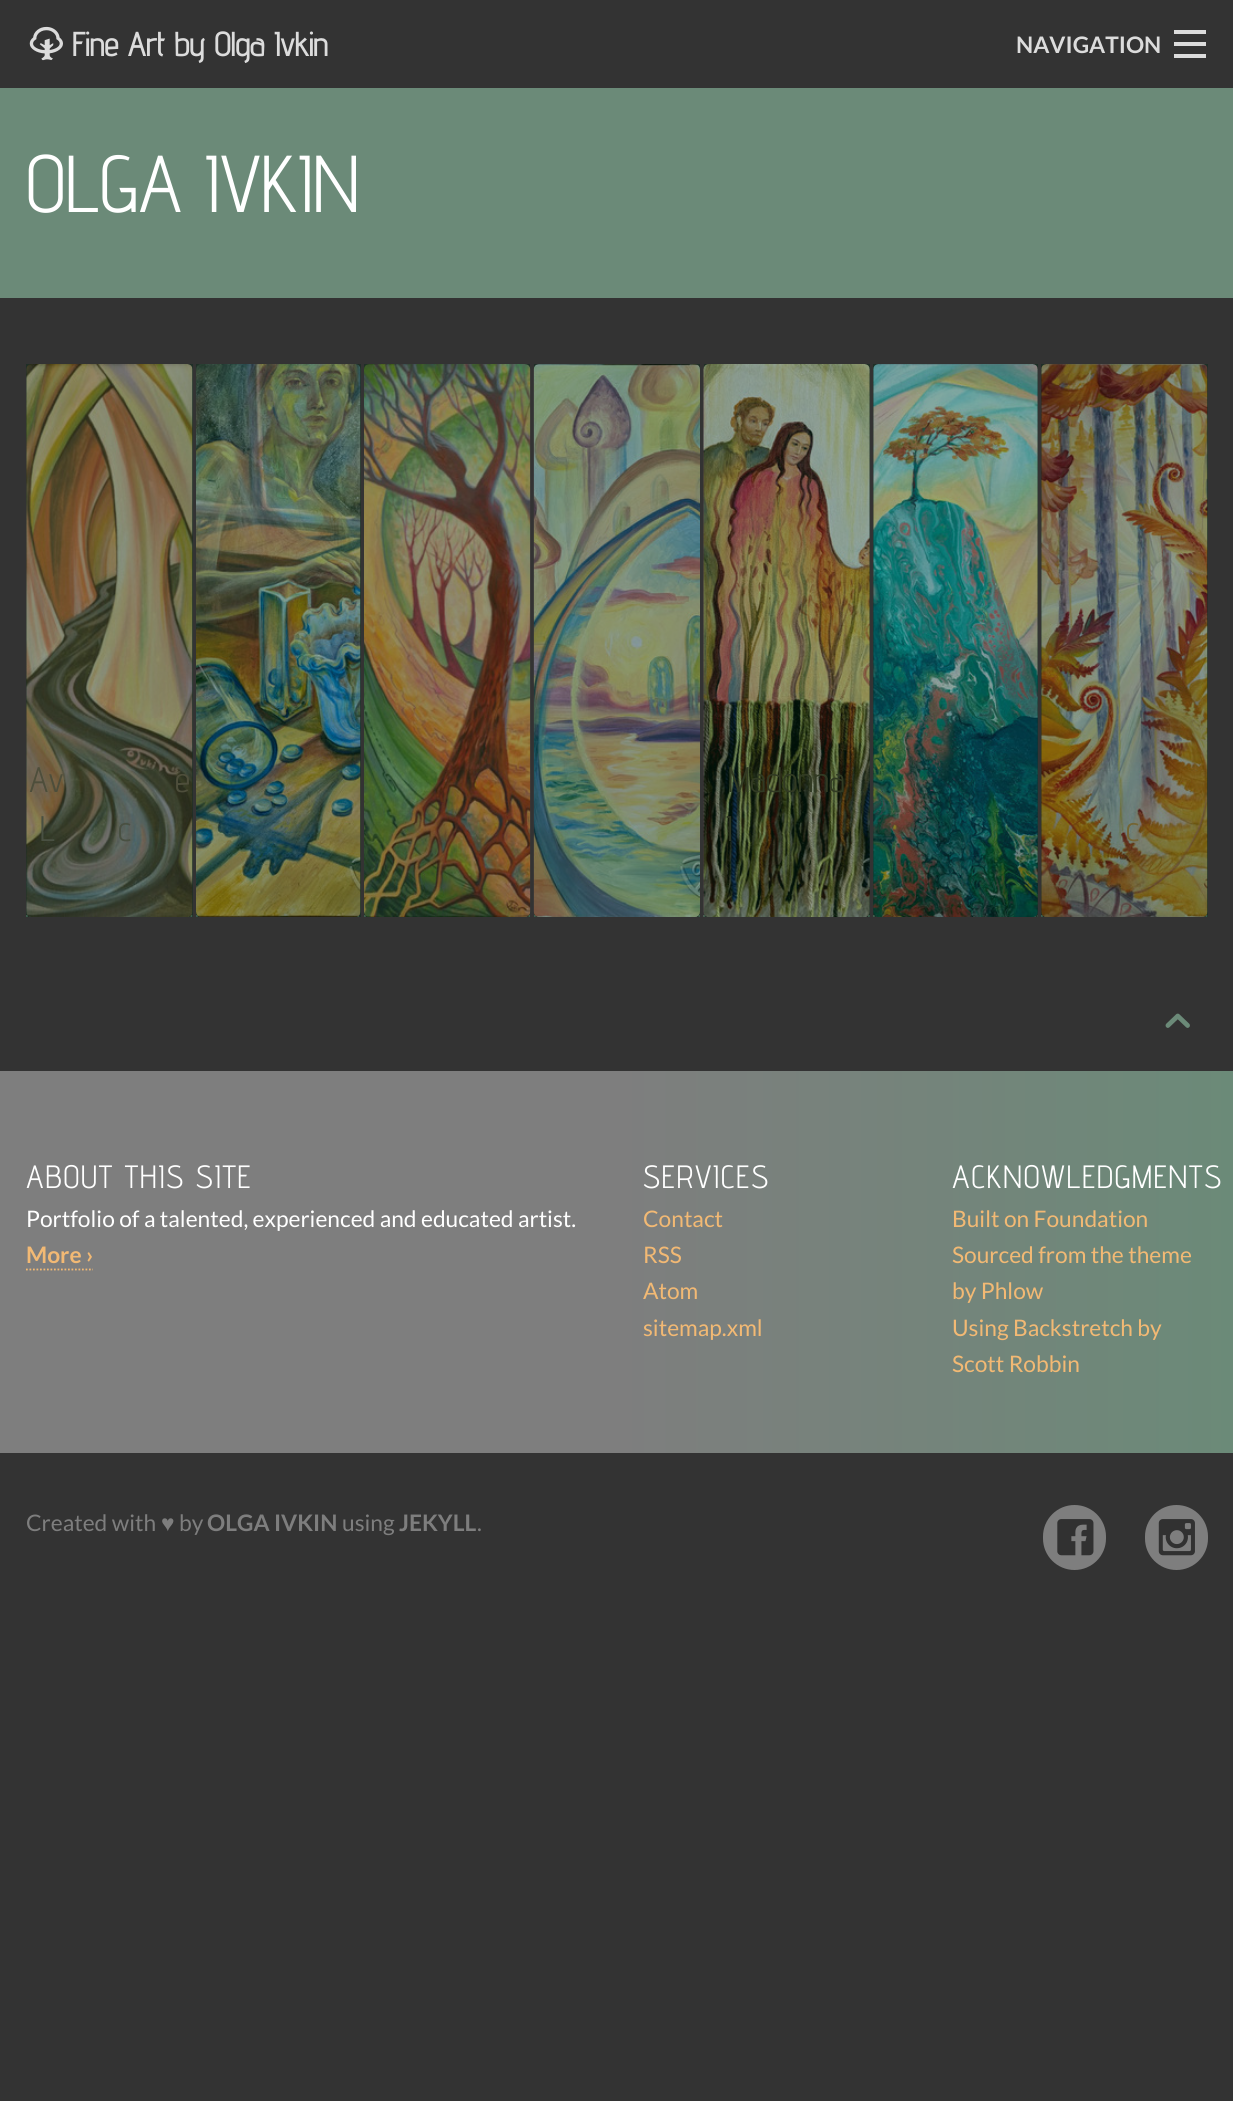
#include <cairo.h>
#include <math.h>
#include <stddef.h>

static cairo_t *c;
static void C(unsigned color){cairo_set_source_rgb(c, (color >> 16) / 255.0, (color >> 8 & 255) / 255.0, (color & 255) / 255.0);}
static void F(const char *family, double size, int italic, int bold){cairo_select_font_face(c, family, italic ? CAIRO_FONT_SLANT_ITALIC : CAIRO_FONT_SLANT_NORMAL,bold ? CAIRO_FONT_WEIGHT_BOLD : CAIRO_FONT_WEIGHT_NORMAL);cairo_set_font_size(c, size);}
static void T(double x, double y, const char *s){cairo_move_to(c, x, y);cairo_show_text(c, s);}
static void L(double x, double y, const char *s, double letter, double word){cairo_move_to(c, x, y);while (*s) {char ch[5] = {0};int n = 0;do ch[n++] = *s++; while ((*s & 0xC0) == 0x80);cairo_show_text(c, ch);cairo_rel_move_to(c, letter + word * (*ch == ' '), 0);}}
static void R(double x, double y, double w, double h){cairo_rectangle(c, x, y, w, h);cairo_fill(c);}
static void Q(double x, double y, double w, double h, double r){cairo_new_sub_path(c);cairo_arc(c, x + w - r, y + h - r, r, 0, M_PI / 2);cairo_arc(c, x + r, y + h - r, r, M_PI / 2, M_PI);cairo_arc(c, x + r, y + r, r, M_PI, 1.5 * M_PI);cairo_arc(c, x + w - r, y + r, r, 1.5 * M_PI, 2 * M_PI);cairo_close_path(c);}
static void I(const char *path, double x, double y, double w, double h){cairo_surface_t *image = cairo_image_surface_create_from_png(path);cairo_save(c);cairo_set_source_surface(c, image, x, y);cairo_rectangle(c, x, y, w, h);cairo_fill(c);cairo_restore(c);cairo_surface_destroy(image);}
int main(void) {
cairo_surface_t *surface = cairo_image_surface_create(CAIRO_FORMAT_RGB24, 1233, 2101);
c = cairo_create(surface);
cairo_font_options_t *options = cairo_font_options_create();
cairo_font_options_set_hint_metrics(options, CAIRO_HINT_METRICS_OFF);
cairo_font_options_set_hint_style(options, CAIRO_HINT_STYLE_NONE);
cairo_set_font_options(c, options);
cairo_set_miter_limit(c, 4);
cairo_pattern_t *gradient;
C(0x333333);
cairo_paint(c);
C(0x1f2f27);
R(1041,364,167,553);
R(873,364,165,553);
R(534,364,166,553);
R(364,364,166,553);
R(196,364,165,553);
R(26,364,167,553);
I("1.png",29,26,34,35);
F("Advent Pro",33.25,0,1);
C(0xdcdcdc);
T(72,56,"Fine Art by Olga Ivkin");
F("Lato",22.75,0,1);
T(1016,53,"NAVIGATION");
R(1174,54,32,4);
R(1174,42,32,4);
R(1174,30,32,4);
C(0x6b8a78);
R(0,88,1233,210);
F("Advent Pro",80.5,0,0);
C(0xffffff);
T(26,212,"OLGA IVKIN");
cairo_new_path(c);
cairo_move_to(c,26,916);
cairo_line_to(c,192.5,916);
C(0x406350);
cairo_set_line_width(c,1.8);
cairo_set_dash(c,(double[]){1.75,1.75},2,0);
cairo_stroke(c);
I("2.png",26,364,167,553);
F("Advent Pro",35.5,0,0);
C(0x4e4e3b);
T(29,792,"Av");
T(175,792,"e");
C(0x495042);
T(40,841,"L");
T(118,841,"c");
cairo_new_path(c);
cairo_move_to(c,196,916);
cairo_line_to(c,360.5,916);
C(0x406350);
cairo_stroke(c);
I("3.png",196,364,165,553);
cairo_new_path(c);
cairo_move_to(c,364,916);
cairo_line_to(c,530,916);
cairo_stroke(c);
I("4.png",364,364,167,553);
cairo_new_path(c);
cairo_move_to(c,534,916);
cairo_line_to(c,700,916);
cairo_stroke(c);
I("5.png",533,364,167,553);
cairo_new_path(c);
cairo_move_to(c,703.5,916);
cairo_line_to(c,870,916);
C(0x6b8a78);
cairo_stroke(c);
I("6.png",703,364,167,553);
cairo_set_source_rgba(c,0,0.157,0.078,0.4);
R(704,364,166,553);
C(0x313a23);
T(728,792,"Madonna");
C(0x2c3320);
T(726,841,"I");
cairo_new_path(c);
cairo_move_to(c,873,916);
cairo_line_to(c,1038,916);
C(0x406350);
cairo_stroke(c);
I("7.png",873,364,165,553);
cairo_new_path(c);
cairo_move_to(c,1041,916);
cairo_line_to(c,1207.5,916);
cairo_stroke(c);
I("8.png",1041,364,167,553);
C(0x746534);
T(1126,841,"c");
I("9.png",1165,1013,25,15);
gradient = cairo_pattern_create_linear(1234,1262,0,1262);
cairo_pattern_add_color_stop_rgba(gradient,0,0.42,0.541,0.471,1);
cairo_pattern_add_color_stop_rgba(gradient,.5,0.494,0.494,0.494,1);
cairo_pattern_add_color_stop_rgba(gradient,1,0.494,0.494,0.494,1);
cairo_set_source(c,gradient);
cairo_pattern_destroy(gradient);
R(0,1071,1233,382);
F("Advent Pro",32.25,0,0);
C(0xffffff);
L(26,1188,"ABOUT THIS SITE",1.75,0);
F("Lato",22.75,0,0);
T(26,1227,"Portfolio of a talented, experienced and educated artist.");
F("Lato",22.75,0,1);
C(0xf2b974);
T(26,1263,"More ›");
cairo_new_path(c);
cairo_move_to(c,26,1269.5);
cairo_line_to(c,93,1269.5);
cairo_stroke(c);
F("Advent Pro",32.25,0,0);
C(0xffffff);
L(643,1188,"SERVICES",1.75,0);
F("Lato",22.75,0,0);
C(0xf2b974);
T(643,1227,"Contact");
T(643,1263,"RSS");
T(643,1299,"Atom");
T(643,1336,"sitemap.xml");
F("Advent Pro",32.25,0,0);
C(0xffffff);
L(952,1188,"ACKNOWLEDGMENTS",1.75,0);
F("Lato",22.75,0,0);
C(0xf2b974);
T(952,1227,"Built on Foundation");
T(952,1263,"Sourced from the theme");
T(952,1299,"by Phlow");
T(952,1336,"Using Backstretch by");
T(952,1372,"Scott Robbin");
C(0x7e7e7e);
T(26,1531,"Created with");
F("Liberation Sans",22.75,0,0);
T(161,1531,"♥");
F("Lato",22.75,0,0);
T(179,1531,"by");
F("Lato",22.75,0,1);
T(207,1531,"OLGA IVKIN");
F("Lato",22.75,0,0);
T(342,1531,"using");
F("Lato",22.75,0,1);
T(399,1531,"JEKYLL");
F("Lato",22.75,0,0);
T(477,1531,".");
Q(1043,1505,63,65,31.5);
cairo_fill(c);
I("10.png",1057,1519,37,37);
Q(1145,1505,63,65,31.5);
cairo_fill(c);
I("11.png",1158,1519,37,37);
cairo_surface_write_to_png(surface, "o.png");
cairo_font_options_destroy(options);
cairo_destroy(c);
cairo_surface_destroy(surface);
return 0;
}
